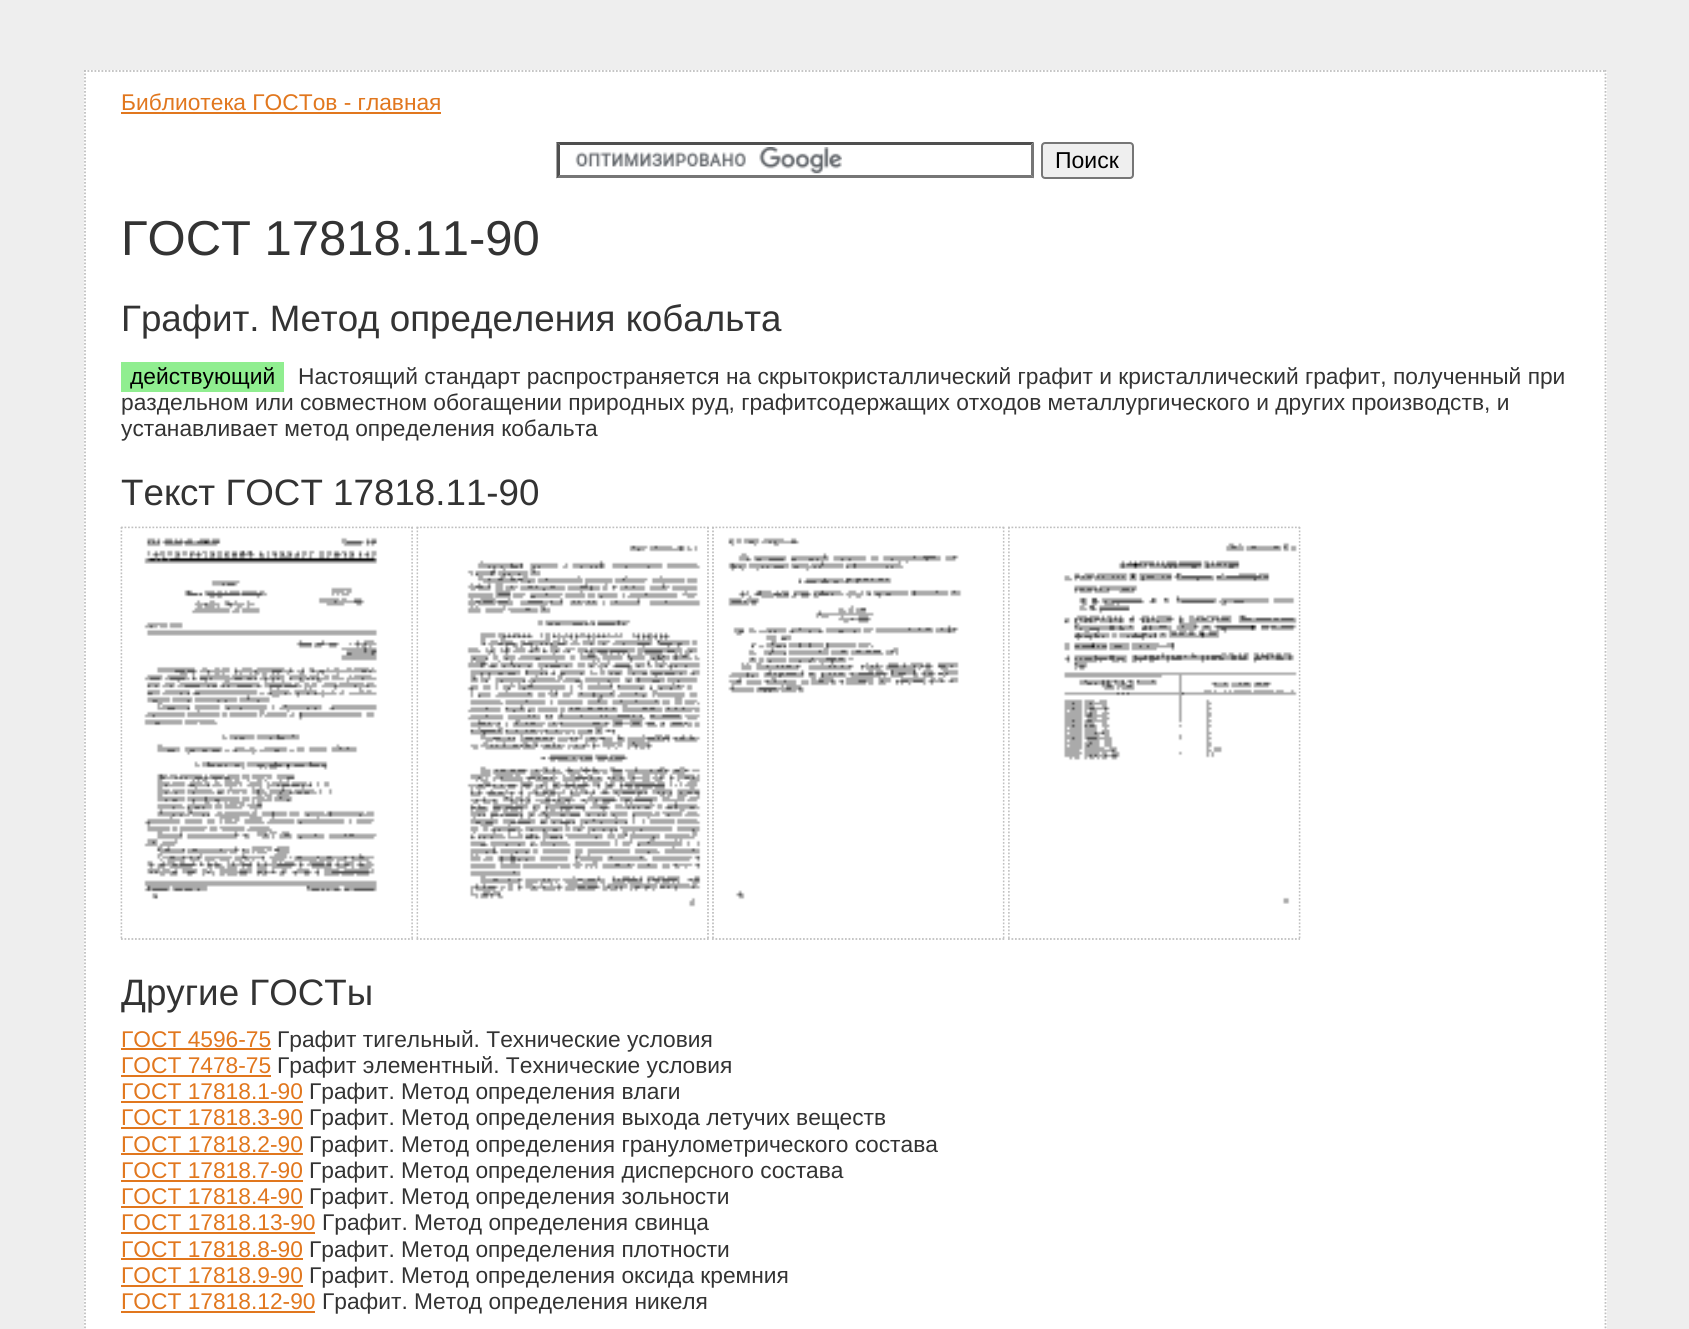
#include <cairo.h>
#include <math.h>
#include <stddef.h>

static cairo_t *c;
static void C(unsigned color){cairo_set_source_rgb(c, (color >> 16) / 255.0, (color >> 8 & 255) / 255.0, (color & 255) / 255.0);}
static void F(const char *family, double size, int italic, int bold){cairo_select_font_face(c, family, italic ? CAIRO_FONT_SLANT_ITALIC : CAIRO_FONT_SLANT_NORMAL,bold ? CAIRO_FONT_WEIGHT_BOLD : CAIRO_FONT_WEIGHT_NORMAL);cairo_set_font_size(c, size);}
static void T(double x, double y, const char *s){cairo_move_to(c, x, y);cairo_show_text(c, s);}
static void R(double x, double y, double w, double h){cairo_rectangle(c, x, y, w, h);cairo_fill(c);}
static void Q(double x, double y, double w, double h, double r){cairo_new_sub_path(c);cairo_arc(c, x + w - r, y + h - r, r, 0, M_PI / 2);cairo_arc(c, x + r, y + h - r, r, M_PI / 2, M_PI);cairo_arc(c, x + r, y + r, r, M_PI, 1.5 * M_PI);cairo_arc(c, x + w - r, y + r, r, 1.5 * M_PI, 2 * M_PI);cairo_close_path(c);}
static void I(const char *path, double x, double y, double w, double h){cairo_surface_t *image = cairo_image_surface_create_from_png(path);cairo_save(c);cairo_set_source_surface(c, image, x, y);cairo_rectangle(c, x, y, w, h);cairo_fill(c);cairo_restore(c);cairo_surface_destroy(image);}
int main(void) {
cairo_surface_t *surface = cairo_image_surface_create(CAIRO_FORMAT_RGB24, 1689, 1329);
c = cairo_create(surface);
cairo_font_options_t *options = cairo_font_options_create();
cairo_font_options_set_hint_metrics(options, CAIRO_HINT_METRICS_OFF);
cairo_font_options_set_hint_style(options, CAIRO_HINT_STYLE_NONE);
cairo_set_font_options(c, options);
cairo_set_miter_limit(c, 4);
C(0xeeeeee);
cairo_paint(c);
C(0xffffff);
R(84,70,1523,1259);
cairo_new_path(c);
cairo_move_to(c,84,71);
cairo_line_to(c,1606.5,71);
C(0xc0c0c0);
cairo_set_line_width(c,1.8);
cairo_set_dash(c,(double[]){1.75,1.75},2,0);
cairo_stroke(c);
cairo_new_path(c);
cairo_move_to(c,1605.5,70);
cairo_line_to(c,1605.5,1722);
cairo_stroke(c);
cairo_new_path(c);
cairo_move_to(c,85,70);
cairo_line_to(c,85,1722);
cairo_stroke(c);
F("Liberation Sans",22.75,0,0);
C(0xe1771e);
T(121,110,"Библиотека ГОСТов - главная");
R(121,112,320,2);
I("1.png",575,147,267,27);
C(0x4f4f4f);
cairo_new_path(c);
cairo_move_to(c,556,142);
cairo_line_to(c,1034,142);
cairo_line_to(c,1031,145);
cairo_line_to(c,560,145);
cairo_close_path(c);
cairo_fill(c);
C(0x767676);
cairo_new_path(c);
cairo_move_to(c,1034,142);
cairo_line_to(c,1034,178.5);
cairo_line_to(c,1031,175);
cairo_line_to(c,1031,145);
cairo_close_path(c);
cairo_fill(c);
cairo_new_path(c);
cairo_move_to(c,1034,178);
cairo_line_to(c,556,178);
cairo_line_to(c,560,175);
cairo_line_to(c,1031,175);
cairo_close_path(c);
cairo_fill(c);
C(0x4f4f4f);
cairo_new_path(c);
cairo_move_to(c,556.5,178.5);
cairo_line_to(c,556.5,142);
cairo_line_to(c,560,145);
cairo_line_to(c,560,175);
cairo_close_path(c);
cairo_fill(c);
C(0xefefef);
Q(1042,143,91,35,3);
cairo_fill_preserve(c);
C(0x767676);
cairo_set_line_width(c,2);
cairo_set_dash(c,NULL,0,0);
cairo_stroke(c);
F("Liberation Sans",23,0,0);
C(0x000000);
T(1055,168,"Поиск");
F("Liberation Sans",49,0,0);
C(0x333333);
T(121,255,"ГОСТ 17818.11-90");
F("Liberation Sans",36.75,0,0);
T(121,331,"Графит. Метод определения кобальта");
C(0x90ee90);
R(121,362,163,30);
F("Liberation Sans",22.75,0,0);
C(0x000000);
T(130,384,"действующий");
C(0x333333);
T(298,384,"Настоящий стандарт распространяется на скрытокристаллический графит и кристаллический графит, полученный при");
T(121,410,"раздельном или совместном обогащении природных руд, графитсодержащих отходов металлургического и других производств, и");
T(121,436,"устанавливает метод определения кобальта");
F("Liberation Sans",36.75,0,0);
T(121,505,"Текст ГОСТ 17818.11-90");
cairo_new_path(c);
cairo_move_to(c,121,527.5);
cairo_line_to(c,413,527.5);
C(0xc0c0c0);
cairo_set_line_width(c,1.8);
cairo_set_dash(c,(double[]){1.75,1.75},2,0);
cairo_stroke(c);
cairo_new_path(c);
cairo_move_to(c,416.5,527.5);
cairo_line_to(c,709,527.5);
cairo_stroke(c);
cairo_new_path(c);
cairo_move_to(c,712,527.5);
cairo_line_to(c,1004.5,527.5);
cairo_stroke(c);
cairo_new_path(c);
cairo_move_to(c,1008,527.5);
cairo_line_to(c,1300,527.5);
cairo_stroke(c);
cairo_new_path(c);
cairo_move_to(c,412,527);
cairo_line_to(c,412,940);
cairo_stroke(c);
cairo_new_path(c);
cairo_move_to(c,121,939);
cairo_line_to(c,413,939);
cairo_stroke(c);
cairo_new_path(c);
cairo_move_to(c,121.5,527);
cairo_line_to(c,121.5,940);
cairo_stroke(c);
cairo_new_path(c);
cairo_move_to(c,708,527);
cairo_line_to(c,708,940);
cairo_stroke(c);
cairo_new_path(c);
cairo_move_to(c,416.5,939);
cairo_line_to(c,709,939);
cairo_stroke(c);
cairo_new_path(c);
cairo_move_to(c,417.5,527);
cairo_line_to(c,417.5,940);
cairo_stroke(c);
cairo_new_path(c);
cairo_move_to(c,1003.5,527);
cairo_line_to(c,1003.5,940);
cairo_stroke(c);
cairo_new_path(c);
cairo_move_to(c,712,939);
cairo_line_to(c,1004.5,939);
cairo_stroke(c);
cairo_new_path(c);
cairo_move_to(c,713,527);
cairo_line_to(c,713,940);
cairo_stroke(c);
cairo_new_path(c);
cairo_move_to(c,1299.5,527);
cairo_line_to(c,1299.5,940);
cairo_stroke(c);
cairo_new_path(c);
cairo_move_to(c,1008,939);
cairo_line_to(c,1300,939);
cairo_stroke(c);
cairo_new_path(c);
cairo_move_to(c,1009,527);
cairo_line_to(c,1009,940);
cairo_stroke(c);
I("2.png",122,528,290,410);
I("3.png",418,528,287,410);
I("4.png",715,528,288,410);
I("5.png",1009,528,290,410);
C(0x333333);
T(121,1005,"Другие ГОСТы");
F("Liberation Sans",22.75,0,0);
C(0xe1771e);
T(121,1047,"ГОСТ 4596-75");
R(121,1048,150,2);
C(0x333333);
T(277,1047,"Графит тигельный. Технические условия");
C(0xe1771e);
T(121,1073,"ГОСТ 7478-75");
R(121,1075,150,2);
C(0x333333);
T(277,1073,"Графит элементный. Технические условия");
C(0xe1771e);
T(121,1099,"ГОСТ 17818.1-90");
R(121,1101,182,2);
C(0x333333);
T(309,1099,"Графит. Метод определения влаги");
C(0xe1771e);
T(121,1125,"ГОСТ 17818.3-90");
R(121,1127,182,2);
C(0x333333);
T(309,1125,"Графит. Метод определения выхода летучих веществ");
C(0xe1771e);
T(121,1152,"ГОСТ 17818.2-90");
R(121,1153,182,2);
C(0x333333);
T(309,1152,"Графит. Метод определения гранулометрического состава");
C(0xe1771e);
T(121,1178,"ГОСТ 17818.7-90");
R(121,1180,182,2);
C(0x333333);
T(309,1178,"Графит. Метод определения дисперсного состава");
C(0xe1771e);
T(121,1204,"ГОСТ 17818.4-90");
R(121,1206,182,2);
C(0x333333);
T(309,1204,"Графит. Метод определения зольности");
C(0xe1771e);
T(121,1230,"ГОСТ 17818.13-90");
R(121,1232,194,2);
C(0x333333);
T(322,1230,"Графит. Метод определения свинца");
C(0xe1771e);
T(121,1257,"ГОСТ 17818.8-90");
R(121,1258,182,2);
C(0x333333);
T(309,1257,"Графит. Метод определения плотности");
C(0xe1771e);
T(121,1283,"ГОСТ 17818.9-90");
R(121,1285,182,2);
C(0x333333);
T(309,1283,"Графит. Метод определения оксида кремния");
C(0xe1771e);
T(121,1309,"ГОСТ 17818.12-90");
R(121,1311,194,2);
C(0x333333);
T(322,1309,"Графит. Метод определения никеля");
cairo_surface_write_to_png(surface, "o.png");
cairo_font_options_destroy(options);
cairo_destroy(c);
cairo_surface_destroy(surface);
return 0;
}
